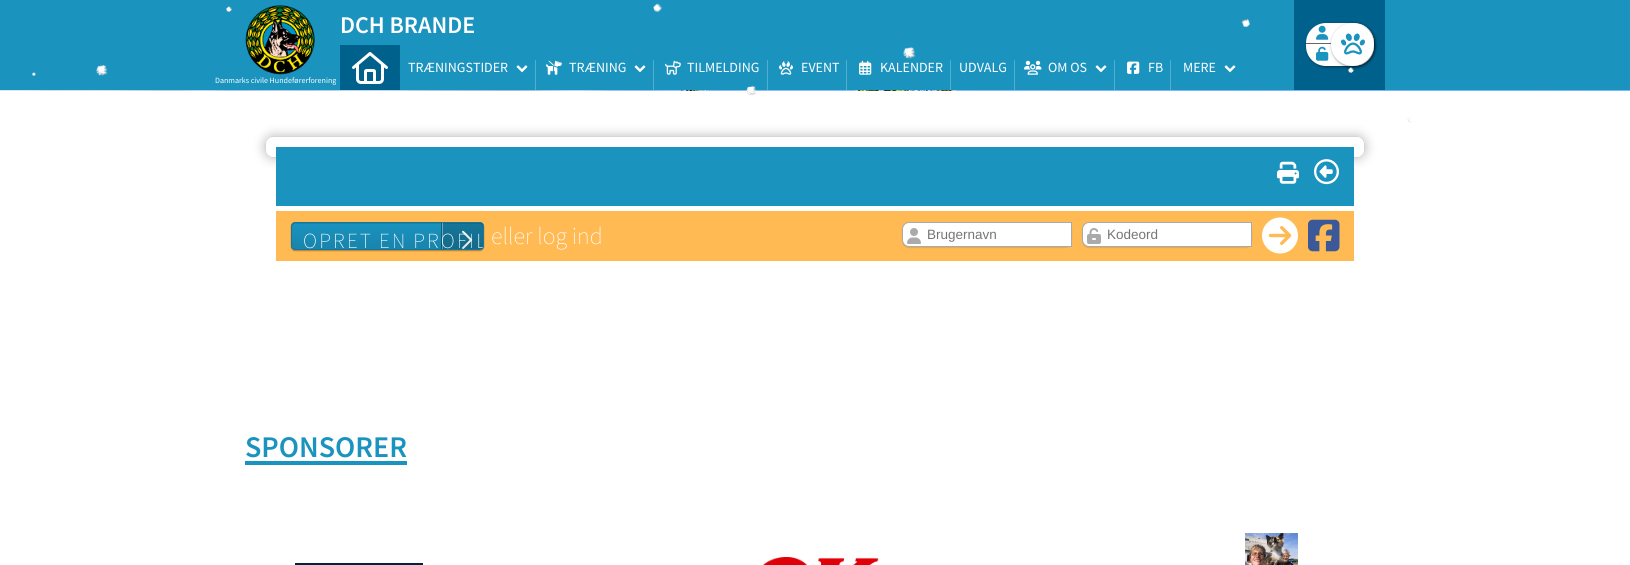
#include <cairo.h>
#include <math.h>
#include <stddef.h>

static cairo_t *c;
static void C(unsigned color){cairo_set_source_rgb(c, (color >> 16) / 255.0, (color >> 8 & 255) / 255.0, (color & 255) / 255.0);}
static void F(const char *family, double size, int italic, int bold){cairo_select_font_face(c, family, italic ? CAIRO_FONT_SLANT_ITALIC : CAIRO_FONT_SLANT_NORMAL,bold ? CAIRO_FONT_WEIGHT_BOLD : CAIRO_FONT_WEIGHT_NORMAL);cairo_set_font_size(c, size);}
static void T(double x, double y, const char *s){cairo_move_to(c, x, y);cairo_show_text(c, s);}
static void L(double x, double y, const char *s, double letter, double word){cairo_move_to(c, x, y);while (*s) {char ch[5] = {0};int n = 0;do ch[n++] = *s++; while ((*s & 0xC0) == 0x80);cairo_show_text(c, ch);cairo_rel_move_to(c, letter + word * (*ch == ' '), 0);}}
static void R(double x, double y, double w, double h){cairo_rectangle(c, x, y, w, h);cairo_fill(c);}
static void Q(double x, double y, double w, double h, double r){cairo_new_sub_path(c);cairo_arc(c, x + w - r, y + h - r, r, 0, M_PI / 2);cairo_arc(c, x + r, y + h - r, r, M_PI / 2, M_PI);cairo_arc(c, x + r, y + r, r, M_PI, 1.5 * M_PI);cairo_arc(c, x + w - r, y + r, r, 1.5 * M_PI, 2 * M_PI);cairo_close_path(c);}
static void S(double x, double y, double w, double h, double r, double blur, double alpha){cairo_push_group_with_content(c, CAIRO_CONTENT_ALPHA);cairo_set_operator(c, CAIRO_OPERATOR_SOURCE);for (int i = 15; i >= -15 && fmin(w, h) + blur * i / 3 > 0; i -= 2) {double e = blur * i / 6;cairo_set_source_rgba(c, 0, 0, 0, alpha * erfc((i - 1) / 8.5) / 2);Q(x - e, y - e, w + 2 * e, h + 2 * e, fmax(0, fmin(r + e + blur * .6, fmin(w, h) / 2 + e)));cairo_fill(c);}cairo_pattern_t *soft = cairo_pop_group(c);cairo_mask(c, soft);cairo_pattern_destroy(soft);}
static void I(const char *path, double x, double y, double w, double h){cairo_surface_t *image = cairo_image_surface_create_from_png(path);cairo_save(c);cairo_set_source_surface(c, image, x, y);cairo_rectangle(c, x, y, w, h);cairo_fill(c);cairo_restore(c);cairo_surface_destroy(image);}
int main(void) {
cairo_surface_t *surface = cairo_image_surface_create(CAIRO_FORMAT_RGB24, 1630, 565);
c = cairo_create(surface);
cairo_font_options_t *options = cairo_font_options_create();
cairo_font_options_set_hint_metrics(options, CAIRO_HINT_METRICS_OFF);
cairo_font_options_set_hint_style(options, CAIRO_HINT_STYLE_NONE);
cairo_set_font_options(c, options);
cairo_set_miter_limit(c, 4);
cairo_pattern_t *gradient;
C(0xffffff);
cairo_paint(c);
C(0x1a93bf);
R(0,0,1630,90);
I("2.png",245,5,70,70);
F("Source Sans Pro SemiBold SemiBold",24,0,0);
C(0xffffff);
T(340,33,"DCH BRANDE");
F("Source Sans Pro",8,0,0);
T(215,83,"Danmarks civile Hundeførerforening");
C(0x00618d);
R(340,45,60,45);
I("3.png",352,52,36,32);
F("Source Sans Pro",14,0,0);
C(0xffffff);
T(408,72,"TRÆNINGSTIDER");
I("4.png",516,65,12,8);
C(0x53aecf);
R(535,60,1,30);
I("5.png",546,60,16,15);
C(0xffffff);
T(569,72,"TRÆNING");
I("4.png",634,65,12,8);
C(0x53aecf);
R(653,60,1,30);
I("6.png",665,60,16,15);
C(0xffffff);
T(687,72,"TILMELDING");
C(0x53aecf);
R(767,60,1,30);
I("7.png",779,61,14,14);
C(0xffffff);
T(801,72,"EVENT");
C(0x53aecf);
R(846,60,1,30);
I("8.png",859,60,13,15);
C(0xffffff);
T(880,72,"KALENDER");
C(0x53aecf);
R(950,60,1,30);
C(0xffffff);
T(959,72,"UDVALG");
C(0x53aecf);
R(1014,60,1,30);
I("9.png",1024,60,18,15);
C(0xffffff);
T(1048,72,"OM OS");
I("4.png",1095,65,12,8);
C(0x53aecf);
R(1114,60,1,30);
I("10.png",1127,61,13,13);
C(0xffffff);
T(1148,72,"FB");
C(0x53aecf);
R(1170,60,1,30);
C(0xffffff);
T(1183,72,"MERE");
I("4.png",1224,65,12,8);
C(0x00618d);
R(1294,0,91,90);
C(0x000000);
S(1307,24,68,43,20,1.5,.5);
C(0xffffff);
Q(1306,23,68,43,20);
cairo_fill(c);
C(0x666666);
R(1306,43,33,1);
I("11.png",1316,25,13,15);
cairo_save(c);
Q(1306,23,68,43,20);
cairo_clip(c);
C(0xffffff);
R(1339,24,35,20);
cairo_restore(c);
I("12.png",1316,46,13,15);
cairo_save(c);
Q(1306,23,68,43,20);
cairo_clip(c);
C(0xffffff);
R(1339,45,35,20);
cairo_restore(c);
C(0x000000);
S(1332,24,43,43,21.5,1.5,.5);
C(0xffffff);
cairo_arc(c,1352.5,44.5,21.5,0,2 * M_PI);
cairo_fill(c);
I("13.png",1341,33,24,22);
I("14.png",0,90,1630,1);
cairo_save(c);
cairo_set_fill_rule(c,CAIRO_FILL_RULE_EVEN_ODD);
cairo_new_path(c);
cairo_move_to(c,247,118);
cairo_line_to(c,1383,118);
cairo_line_to(c,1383,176);
cairo_line_to(c,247,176);
cairo_close_path(c);
cairo_move_to(c,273,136);
cairo_line_to(c,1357,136);
cairo_curve_to(c,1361.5,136,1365,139.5,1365,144);
cairo_line_to(c,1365,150);
cairo_curve_to(c,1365,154.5,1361.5,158,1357,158);
cairo_line_to(c,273,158);
cairo_curve_to(c,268.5,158,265,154.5,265,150);
cairo_line_to(c,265,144);
cairo_curve_to(c,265,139.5,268.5,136,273,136);
cairo_close_path(c);
cairo_clip(c);
C(0x000000);
S(263,134,1104,26,10,5,.2);
cairo_restore(c);
I("1.png",32,3,1380,120);
Q(265.5,136.5,1099,21,7.5);
C(0xd6d6d6);
cairo_set_line_width(c,1);
cairo_stroke(c);
C(0x1a93bf);
R(276,147,1078,59);
I("15.png",1277,161,22,23);
I("16.png",1314,159,25,26);
C(0xffba53);
R(276,211,1078,50);
C(0x000000);
S(291,223,193,28,4,.5,.3);
C(0x1a93bf);
Q(291,222,193,28,4);
cairo_fill(c);
C(0x1784ac);
cairo_new_path(c);
cairo_move_to(c,295,224);
cairo_line_to(c,480,224);
cairo_curve_to(c,481,224,483,226,483,227);
cairo_curve_to(c,483,225,483,223,480,223);
cairo_line_to(c,294,223);
cairo_curve_to(c,292,223,292,225,292,227);
cairo_curve_to(c,292,226,294,224,295,224);
cairo_close_path(c);
cairo_fill(c);
Q(291.5,222.5,192,27,3.5);
cairo_set_source_rgba(c,0,0,0,0.2);
cairo_stroke(c);
cairo_new_path(c);
cairo_move_to(c,441,223);
cairo_line_to(c,480.5,223);
cairo_curve_to(c,482,223,483,224,483,225.5);
cairo_line_to(c,483,246.5);
cairo_curve_to(c,483,248,482,249,480.5,249);
cairo_line_to(c,441,249);
cairo_close_path(c);
cairo_fill(c);
cairo_set_source_rgba(c,1,1,1,0.4);
R(442,223,1,26);
cairo_set_source_rgba(c,0,0,0,0.2);
R(441,223,1,26);
I("17.png",462,230,11,19);
gradient = cairo_pattern_create_linear(388,223,388,249);
cairo_pattern_add_color_stop_rgba(gradient,0,0,0,0,0);
cairo_pattern_add_color_stop_rgba(gradient,1,0,0,0,.1);
cairo_set_source(c,gradient);
cairo_pattern_destroy(gradient);
Q(292,223,191,26,2.5);
cairo_fill(c);
cairo_save(c);
Q(292,223,191,26,2.5);
cairo_clip(c);
F("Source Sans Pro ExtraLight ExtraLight",21.5,0,0);
C(0xffffff);
L(303,248,"OPRET EN PROFIL",2.2,-1);
cairo_restore(c);
F("Source Sans Pro ExtraLight ExtraLight",24,0,0);
C(0xffffff);
T(491,244,"eller log ind");
C(0x000000);
S(902,223,170,25,7,.5,.1);
C(0xffffff);
cairo_new_path(c);
cairo_move_to(c,909,222.5);
cairo_line_to(c,1071.5,222.5);
cairo_line_to(c,1071.5,246.5);
cairo_line_to(c,909,246.5);
cairo_curve_to(c,905.5,246.5,902.5,243.5,902.5,240);
cairo_line_to(c,902.5,229);
cairo_curve_to(c,902.5,225.5,905.5,222.5,909,222.5);
cairo_close_path(c);
cairo_fill_preserve(c);
C(0xaaaaaa);
cairo_stroke(c);
I("18.png",907,228,14,16);
F("Liberation Sans",13.5,0,0);
C(0x757575);
T(927,239,"Brugernavn");
C(0x000000);
S(1082,223,170,25,7,.5,.1);
C(0xffffff);
cairo_new_path(c);
cairo_move_to(c,1089,222.5);
cairo_line_to(c,1251.5,222.5);
cairo_line_to(c,1251.5,246.5);
cairo_line_to(c,1089,246.5);
cairo_curve_to(c,1085.5,246.5,1082.5,243.5,1082.5,240);
cairo_line_to(c,1082.5,229);
cairo_curve_to(c,1082.5,225.5,1085.5,222.5,1089,222.5);
cairo_close_path(c);
cairo_fill_preserve(c);
C(0xaaaaaa);
cairo_stroke(c);
I("19.png",1087,228,14,16);
C(0x757575);
T(1107,239,"Kodeord");
I("20.png",1262,217,36,37);
I("21.png",1308,219,32,33);
F("Source Sans Pro SemiBold SemiBold",30,0,0);
C(0x1a93bf);
T(245,457,"SPONSORER");
R(245,461,162,4);
C(0x082143);
R(295,563,128,2);
I("22.png",762,557,117,8);
I("23.png",1245,533,53,32);
cairo_surface_write_to_png(surface, "o.png");
cairo_font_options_destroy(options);
cairo_destroy(c);
cairo_surface_destroy(surface);
return 0;
}
